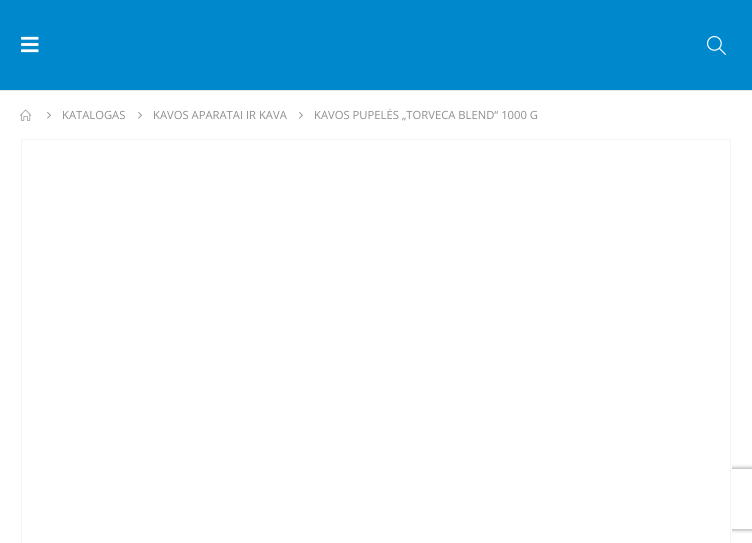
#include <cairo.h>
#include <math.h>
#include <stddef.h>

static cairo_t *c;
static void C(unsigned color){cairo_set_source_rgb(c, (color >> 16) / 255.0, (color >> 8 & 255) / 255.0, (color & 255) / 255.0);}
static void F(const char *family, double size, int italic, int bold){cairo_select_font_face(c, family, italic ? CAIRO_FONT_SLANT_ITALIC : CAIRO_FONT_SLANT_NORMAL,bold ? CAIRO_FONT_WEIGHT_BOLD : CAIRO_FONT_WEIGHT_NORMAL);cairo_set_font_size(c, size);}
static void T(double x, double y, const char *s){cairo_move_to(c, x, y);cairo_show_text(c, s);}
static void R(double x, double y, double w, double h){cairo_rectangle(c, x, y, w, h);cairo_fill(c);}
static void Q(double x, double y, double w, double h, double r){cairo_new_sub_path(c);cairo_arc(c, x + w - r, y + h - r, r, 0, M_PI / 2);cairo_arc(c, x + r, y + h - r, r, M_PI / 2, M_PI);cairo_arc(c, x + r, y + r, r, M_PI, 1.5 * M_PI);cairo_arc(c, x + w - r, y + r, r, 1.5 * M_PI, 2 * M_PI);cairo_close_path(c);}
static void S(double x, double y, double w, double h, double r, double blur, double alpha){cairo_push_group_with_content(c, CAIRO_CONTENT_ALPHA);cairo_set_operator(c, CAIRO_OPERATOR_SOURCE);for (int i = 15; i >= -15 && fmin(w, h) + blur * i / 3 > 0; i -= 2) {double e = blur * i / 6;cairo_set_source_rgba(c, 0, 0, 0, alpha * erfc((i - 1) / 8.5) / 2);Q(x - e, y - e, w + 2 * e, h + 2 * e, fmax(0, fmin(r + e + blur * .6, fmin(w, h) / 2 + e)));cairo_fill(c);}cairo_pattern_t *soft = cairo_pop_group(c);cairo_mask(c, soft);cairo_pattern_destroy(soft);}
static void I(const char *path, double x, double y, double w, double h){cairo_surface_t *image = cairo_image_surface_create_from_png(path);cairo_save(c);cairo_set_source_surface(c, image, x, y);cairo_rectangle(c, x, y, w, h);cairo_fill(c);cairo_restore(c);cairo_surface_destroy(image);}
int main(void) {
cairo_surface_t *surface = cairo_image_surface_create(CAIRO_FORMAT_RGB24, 752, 543);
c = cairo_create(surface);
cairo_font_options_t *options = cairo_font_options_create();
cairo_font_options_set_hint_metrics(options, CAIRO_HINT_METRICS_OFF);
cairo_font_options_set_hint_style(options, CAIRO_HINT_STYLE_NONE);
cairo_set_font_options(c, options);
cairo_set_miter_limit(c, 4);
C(0xffffff);
cairo_paint(c);
C(0xe7e7e7);
R(0,90,752,1);
C(0x0088cc);
R(0,0,752,90);
I("1.png",21,36,18,17);
I("2.png",706,36,20,19);
I("3.png",20,109,12,12);
I("4.png",47,112,4,7);
F("Open Sans",11.25,0,0);
C(0x8e8e8e);
T(62,119,"KATALOGAS");
I("4.png",138,112,4,7);
T(153,119,"KAVOS APARATAI IR KAVA");
I("4.png",299,112,4,7);
T(314,119,"KAVOS PUPELĖS „TORVECA BLEND“ 1000 G");
cairo_save(c);
cairo_set_fill_rule(c,CAIRO_FILL_RULE_EVEN_ODD);
cairo_new_path(c);
cairo_move_to(c,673,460);
cairo_line_to(c,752,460);
cairo_line_to(c,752,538);
cairo_line_to(c,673,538);
cairo_close_path(c);
cairo_move_to(c,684,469);
cairo_line_to(c,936,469);
cairo_curve_to(c,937,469,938,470,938,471);
cairo_line_to(c,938,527);
cairo_curve_to(c,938,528,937,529,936,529);
cairo_line_to(c,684,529);
cairo_curve_to(c,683,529,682,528,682,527);
cairo_line_to(c,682,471);
cairo_curve_to(c,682,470,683,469,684,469);
cairo_close_path(c);
cairo_clip(c);
C(0x808080);
S(682,469,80,60,2,2.5,1);
cairo_restore(c);
C(0xffffff);
R(677,464,55,70);
cairo_rectangle(c,21.5,139.5,709,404);
C(0xf4f4f4);
cairo_set_line_width(c,1);
cairo_stroke(c);
cairo_surface_write_to_png(surface, "o.png");
cairo_font_options_destroy(options);
cairo_destroy(c);
cairo_surface_destroy(surface);
return 0;
}
